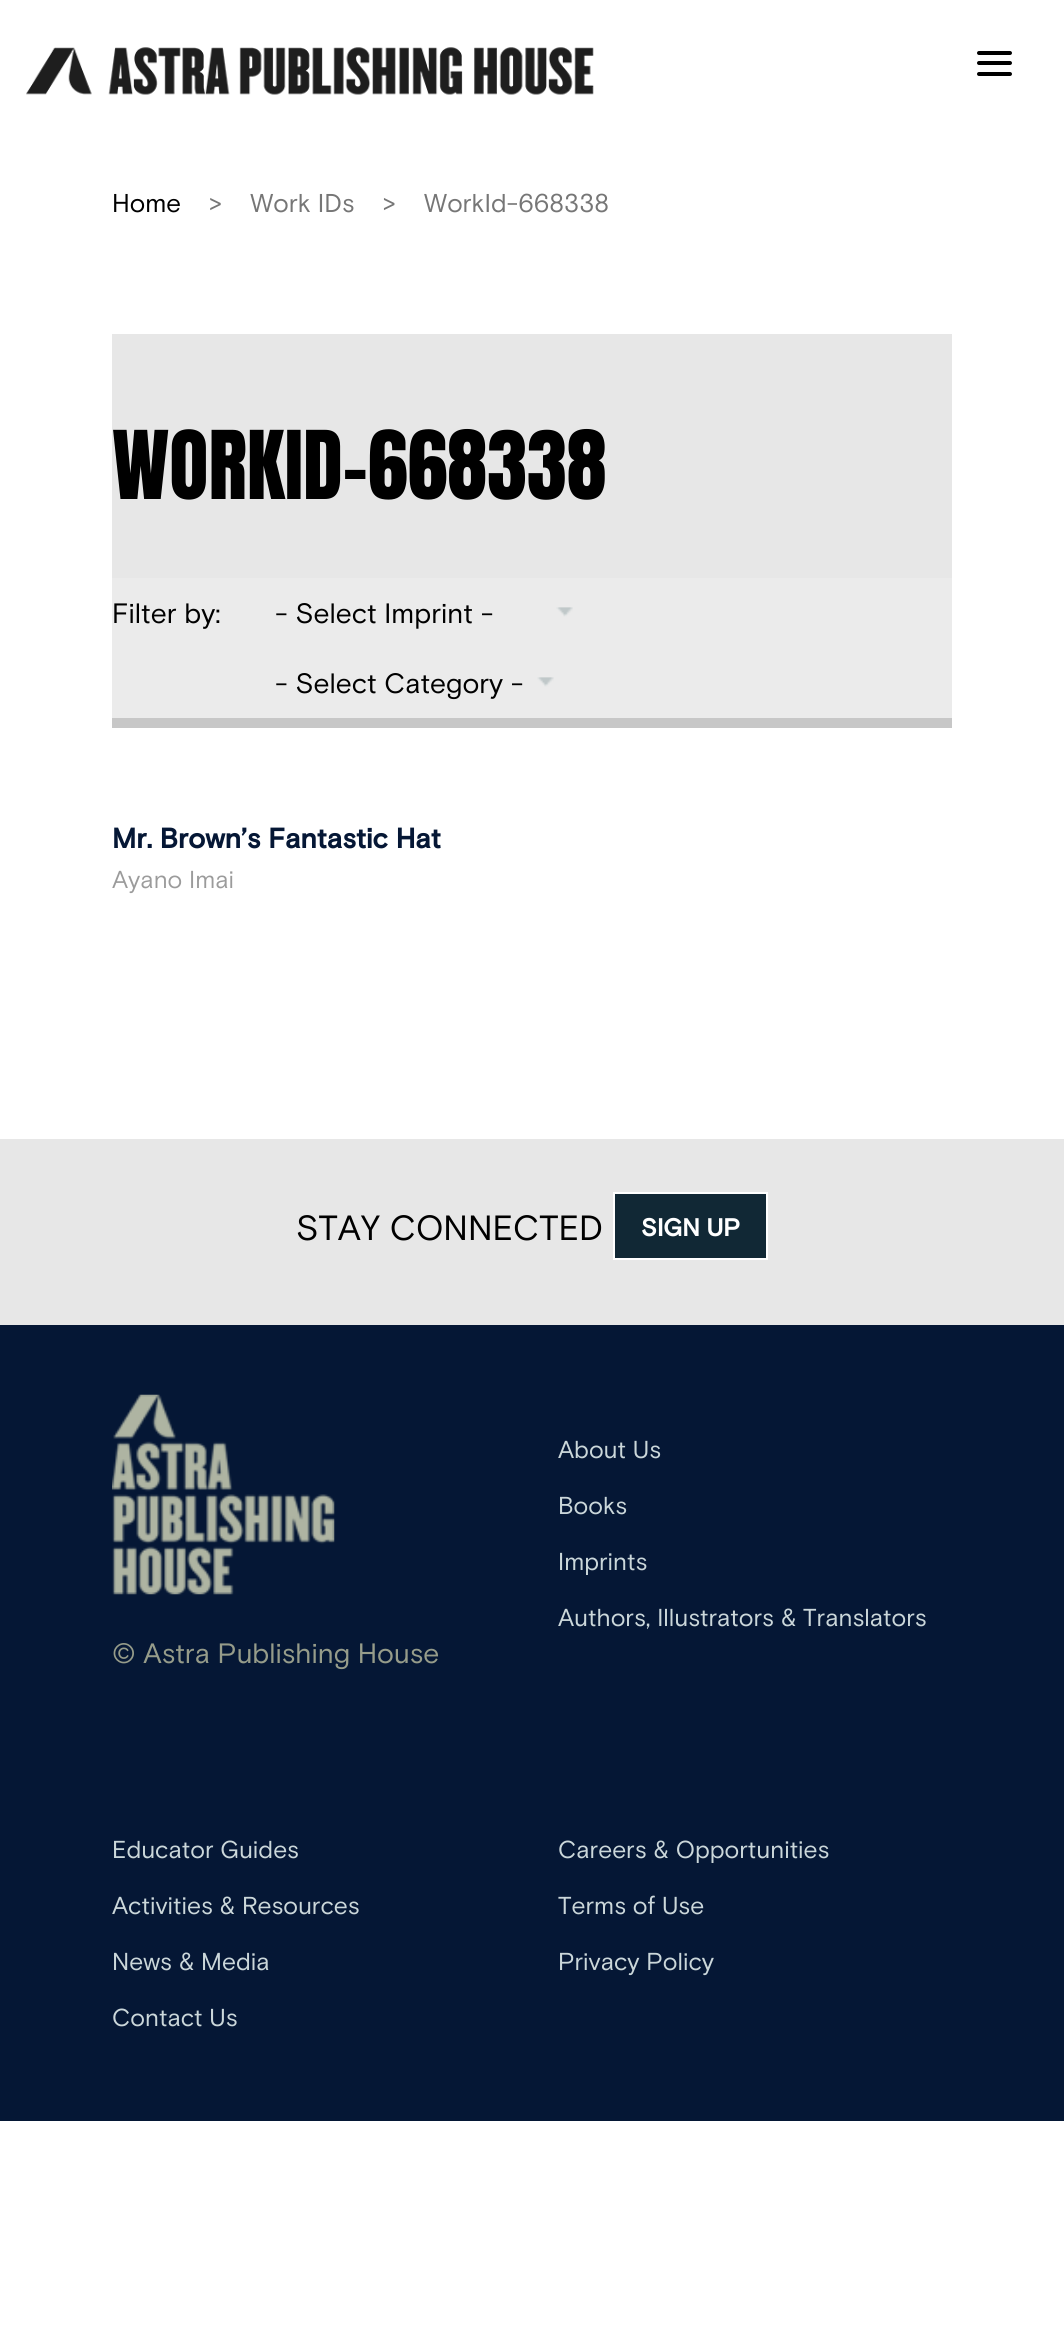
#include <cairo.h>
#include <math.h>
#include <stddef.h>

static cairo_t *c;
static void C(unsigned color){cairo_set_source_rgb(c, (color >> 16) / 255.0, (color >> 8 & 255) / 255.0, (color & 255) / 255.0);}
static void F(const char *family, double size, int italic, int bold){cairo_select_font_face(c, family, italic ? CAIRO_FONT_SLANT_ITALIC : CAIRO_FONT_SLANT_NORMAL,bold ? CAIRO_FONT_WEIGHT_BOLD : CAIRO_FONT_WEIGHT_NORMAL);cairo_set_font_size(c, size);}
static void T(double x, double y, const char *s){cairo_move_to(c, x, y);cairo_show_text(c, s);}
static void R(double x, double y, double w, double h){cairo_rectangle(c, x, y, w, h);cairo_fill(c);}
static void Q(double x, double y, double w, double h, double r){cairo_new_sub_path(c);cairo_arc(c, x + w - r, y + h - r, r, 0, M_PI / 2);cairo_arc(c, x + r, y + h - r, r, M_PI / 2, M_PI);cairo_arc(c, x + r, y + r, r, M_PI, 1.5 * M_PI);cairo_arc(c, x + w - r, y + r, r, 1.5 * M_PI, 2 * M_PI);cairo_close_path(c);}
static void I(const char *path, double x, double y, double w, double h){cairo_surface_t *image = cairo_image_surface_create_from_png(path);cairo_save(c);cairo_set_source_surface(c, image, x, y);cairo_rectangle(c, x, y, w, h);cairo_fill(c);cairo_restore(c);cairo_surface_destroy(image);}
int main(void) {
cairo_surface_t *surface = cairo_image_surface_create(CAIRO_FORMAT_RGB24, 1064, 2335);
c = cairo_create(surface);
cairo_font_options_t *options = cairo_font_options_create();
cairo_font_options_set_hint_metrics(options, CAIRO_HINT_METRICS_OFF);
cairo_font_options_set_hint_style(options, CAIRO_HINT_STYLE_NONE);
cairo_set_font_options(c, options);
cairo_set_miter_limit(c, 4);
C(0xffffff);
cairo_paint(c);
I("1.png",26,47,568,48);
C(0x000000);
Q(977,61,35,4,2);
cairo_fill(c);
Q(977,51,35,4,2);
cairo_fill(c);
Q(977,72,35,4,2);
cairo_fill(c);
F("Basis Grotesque",25.75,0,0);
T(112,212,"Home");
C(0x767676);
T(209,212,">    Work IDs    >    WorkId-668338");
C(0xe7e7e7);
R(112,334,840,244);
F("Anton",80.5,0,0);
C(0x000000);
T(112,499,"WORKID-668338");
C(0xebebeb);
R(112,578,840,140);
C(0xc7c7c7);
R(112,718,840,10);
F("Basis Grotesque",28,0,0);
C(0x000000);
T(112,623,"Filter by:");
I("2.png",556,607,17,10);
T(275,623,"- Select Imprint -");
I("3.png",537,677,17,10);
T(275,693,"- Select Category -");
F("Basis Grotesque",28,0,1);
C(0x051735);
T(112,848,"Mr. Brown’s Fantastic Hat");
F("Basis Grotesque Light",24.5,0,0);
C(0x9b9b9b);
T(112,888,"Ayano Imai");
C(0xe7e7e7);
R(0,1139,1064,186);
F("Basis Grotesque",35,0,0);
C(0x000000);
T(296,1240,"STAY CONNECTED");
C(0x112835);
cairo_rectangle(c,614,1193,153,66);
cairo_fill_preserve(c);
C(0xffffff);
cairo_stroke(c);
F("Basis Grotesque",24.5,0,1);
T(641,1236,"SIGN UP");
C(0x051735);
R(0,1325,1064,796);
F("Basis Grotesque",24.5,0,0);
C(0xcbd7da);
T(558,1458,"About Us");
T(558,1514,"Books");
T(558,1570,"Imprints");
T(558,1626,"Authors, Illustrators & Translators");
I("4.png",112,1394,223,201);
F("Basis Grotesque",28,0,0);
C(0x969c8a);
T(112,1663,"© Astra Publishing House");
F("Basis Grotesque",24.5,0,0);
C(0xcbd7da);
T(112,1858,"Educator Guides");
T(112,1914,"Activities & Resources");
T(112,1970,"News & Media");
T(112,2026,"Contact Us");
T(558,1858,"Careers & Opportunities");
T(558,1914,"Terms of Use");
T(558,1970,"Privacy Policy");
cairo_surface_write_to_png(surface, "o.png");
cairo_font_options_destroy(options);
cairo_destroy(c);
cairo_surface_destroy(surface);
return 0;
}
